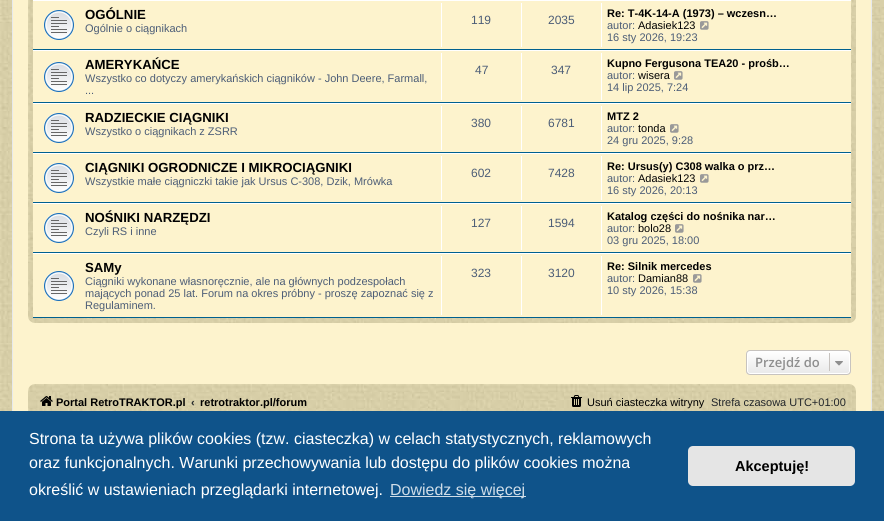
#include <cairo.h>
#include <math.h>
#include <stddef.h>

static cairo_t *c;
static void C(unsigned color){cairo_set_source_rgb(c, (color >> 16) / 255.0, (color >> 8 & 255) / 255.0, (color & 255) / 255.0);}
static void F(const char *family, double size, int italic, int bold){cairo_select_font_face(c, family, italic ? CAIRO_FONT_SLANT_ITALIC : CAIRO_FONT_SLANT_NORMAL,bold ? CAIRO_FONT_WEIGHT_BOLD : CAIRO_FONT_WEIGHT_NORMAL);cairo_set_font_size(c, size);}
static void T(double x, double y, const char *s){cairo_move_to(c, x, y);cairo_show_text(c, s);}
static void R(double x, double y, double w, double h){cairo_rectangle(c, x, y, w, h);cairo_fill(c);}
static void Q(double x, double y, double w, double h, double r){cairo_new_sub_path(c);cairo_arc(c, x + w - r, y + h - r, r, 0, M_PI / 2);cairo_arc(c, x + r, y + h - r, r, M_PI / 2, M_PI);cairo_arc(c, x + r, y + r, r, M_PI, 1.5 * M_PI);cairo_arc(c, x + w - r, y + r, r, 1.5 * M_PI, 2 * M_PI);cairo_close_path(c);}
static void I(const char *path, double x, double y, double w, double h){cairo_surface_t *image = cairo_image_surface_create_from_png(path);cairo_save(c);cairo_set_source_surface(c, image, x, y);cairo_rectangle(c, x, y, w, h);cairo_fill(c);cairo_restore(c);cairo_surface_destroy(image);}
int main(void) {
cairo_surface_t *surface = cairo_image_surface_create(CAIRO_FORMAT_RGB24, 884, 521);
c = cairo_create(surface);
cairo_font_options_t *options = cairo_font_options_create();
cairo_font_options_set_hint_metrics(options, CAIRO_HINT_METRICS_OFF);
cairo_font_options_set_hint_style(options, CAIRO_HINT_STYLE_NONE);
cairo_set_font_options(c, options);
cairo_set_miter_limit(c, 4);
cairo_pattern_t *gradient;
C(0xffffff);
cairo_paint(c);
I("1.png",0,0,884,411);
C(0xfdf3cd);
R(13,0,858,411);
cairo_rectangle(c,12.5,-.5,859,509);
C(0xe6e9ed);
cairo_set_line_width(c,1);
cairo_stroke(c);
I("2.png",28,0,828,323);
C(0xfdf3cd);
R(33,1,818,316);
C(0xffffff);
R(33,0,818,1);
C(0x00608f);
R(33,49,818,1);
I("3.png",44,10,30,30);
F("Liberation Sans",13.2,0,1);
C(0x000000);
T(85,19,"OGÓLNIE");
F("Liberation Sans",11,0,0);
C(0x4c5d77);
T(85,32,"Ogólnie o ciągnikach");
C(0xffffff);
R(441,3,1,44);
F("Liberation Sans",12,0,0);
C(0x4c5d77);
T(471,24,"119");
C(0xffffff);
R(521,3,1,44);
C(0x4c5d77);
T(548,24,"2035");
C(0xffffff);
R(601,3,1,44);
F("Liberation Sans",11,0,1);
C(0x000000);
T(607,17,"Re: T-4K-14-A (1973) – wczesn…");
F("Liberation Sans",11,0,0);
C(0x4c5d77);
T(607,29,"autor:");
C(0x000000);
T(638,29,"Adasiek123");
I("4.png",700,21,9,9);
C(0x4c5d77);
T(607,41,"16 sty 2026, 19:23");
C(0xffffff);
R(33,50,818,1);
C(0x00608f);
R(33,102,818,1);
I("3.png",44,62,30,30);
F("Liberation Sans",13.2,0,1);
C(0x000000);
T(85,69,"AMERYKAŃCE");
F("Liberation Sans",11,0,0);
C(0x4c5d77);
T(85,82,"Wszystko co dotyczy amerykańskich ciągników - John Deere, Farmall,");
T(85,94,"...");
C(0xffffff);
R(441,53,1,47);
F("Liberation Sans",12,0,0);
C(0x4c5d77);
T(475,74,"47");
C(0xffffff);
R(521,53,1,47);
C(0x4c5d77);
T(551,74,"347");
C(0xffffff);
R(601,53,1,47);
F("Liberation Sans",11,0,1);
C(0x000000);
T(607,67,"Kupno Fergusona TEA20 - prośb…");
F("Liberation Sans",11,0,0);
C(0x4c5d77);
T(607,79,"autor:");
C(0x000000);
T(638,79,"wisera");
I("4.png",674,71,9,9);
C(0x4c5d77);
T(607,91,"14 lip 2025, 7:24");
C(0xffffff);
R(33,103,818,1);
C(0x00608f);
R(33,152,818,1);
I("3.png",44,113,30,30);
F("Liberation Sans",13.2,0,1);
C(0x000000);
T(85,122,"RADZIECKIE CIĄGNIKI");
F("Liberation Sans",11,0,0);
C(0x4c5d77);
T(85,135,"Wszystko o ciągnikach z ZSRR");
C(0xffffff);
R(441,106,1,44);
F("Liberation Sans",12,0,0);
C(0x4c5d77);
T(471,127,"380");
C(0xffffff);
R(521,106,1,44);
C(0x4c5d77);
T(548,127,"6781");
C(0xffffff);
R(601,106,1,44);
F("Liberation Sans",11,0,1);
C(0x000000);
T(607,120,"MTZ 2");
F("Liberation Sans",11,0,0);
C(0x4c5d77);
T(607,132,"autor:");
C(0x000000);
T(638,132,"tonda");
I("4.png",670,124,9,9);
C(0x4c5d77);
T(607,144,"24 gru 2025, 9:28");
C(0xffffff);
R(33,153,818,1);
C(0x00608f);
R(33,202,818,1);
I("3.png",44,163,30,30);
F("Liberation Sans",13.2,0,1);
C(0x000000);
T(85,172,"CIĄGNIKI OGRODNICZE I MIKROCIĄGNIKI");
F("Liberation Sans",11,0,0);
C(0x4c5d77);
T(85,185,"Wszystkie małe ciągniczki takie jak Ursus C-308, Dzik, Mrówka");
C(0xffffff);
R(441,156,1,44);
F("Liberation Sans",12,0,0);
C(0x4c5d77);
T(471,177,"602");
C(0xffffff);
R(521,156,1,44);
C(0x4c5d77);
T(548,177,"7428");
C(0xffffff);
R(601,156,1,44);
F("Liberation Sans",11,0,1);
C(0x000000);
T(607,170,"Re: Ursus(y) C308 walka o prz…");
F("Liberation Sans",11,0,0);
C(0x4c5d77);
T(607,182,"autor:");
C(0x000000);
T(638,182,"Adasiek123");
I("4.png",700,174,9,9);
C(0x4c5d77);
T(607,194,"16 sty 2026, 20:13");
C(0xffffff);
R(33,203,818,1);
C(0x00608f);
R(33,252,818,1);
I("3.png",44,213,30,30);
F("Liberation Sans",13.2,0,1);
C(0x000000);
T(85,222,"NOŚNIKI NARZĘDZI");
F("Liberation Sans",11,0,0);
C(0x4c5d77);
T(85,235,"Czyli RS i inne");
C(0xffffff);
R(441,206,1,44);
F("Liberation Sans",12,0,0);
C(0x4c5d77);
T(471,227,"127");
C(0xffffff);
R(521,206,1,44);
C(0x4c5d77);
T(548,227,"1594");
C(0xffffff);
R(601,206,1,44);
F("Liberation Sans",11,0,1);
C(0x000000);
T(607,220,"Katalog części do nośnika nar…");
F("Liberation Sans",11,0,0);
C(0x4c5d77);
T(607,232,"autor:");
C(0x000000);
T(638,232,"bolo28");
I("4.png",675,224,9,9);
C(0x4c5d77);
T(607,244,"03 gru 2025, 18:00");
C(0xffffff);
R(33,253,818,1);
C(0x00608f);
R(33,317,818,1);
I("3.png",44,271,30,30);
F("Liberation Sans",13.2,0,1);
C(0x000000);
T(85,272,"SAMy");
F("Liberation Sans",11,0,0);
C(0x4c5d77);
T(85,285,"Ciągniki wykonane własnoręcznie, ale na głównych podzespołach");
T(85,297,"mających ponad 25 lat. Forum na okres próbny - proszę zapoznać się z");
T(85,309,"Regulaminem.");
C(0xffffff);
R(441,256,1,59);
F("Liberation Sans",12,0,0);
C(0x4c5d77);
T(471,277,"323");
C(0xffffff);
R(521,256,1,59);
C(0x4c5d77);
T(548,277,"3120");
C(0xffffff);
R(601,256,1,59);
F("Liberation Sans",11,0,1);
C(0x000000);
T(607,270,"Re: Silnik mercedes");
F("Liberation Sans",11,0,0);
C(0x4c5d77);
T(607,282,"autor:");
C(0x000000);
T(638,282,"Damian88");
I("4.png",693,274,9,9);
C(0x4c5d77);
T(607,294,"10 sty 2026, 15:38");
cairo_save(c);
Q(746,350,105,25,4);
cairo_clip(c);
gradient = cairo_pattern_create_linear(799,351,799,374);
cairo_pattern_add_color_stop_rgba(gradient,0,1,1,1,1);
cairo_pattern_add_color_stop_rgba(gradient,1,0.914,0.914,0.914,1);
cairo_set_source(c,gradient);
cairo_pattern_destroy(gradient);
R(746,351,105,23);
cairo_restore(c);
Q(747.5,351.5,102,22,2.5);
C(0xffffff);
cairo_stroke(c);
Q(746.5,350.5,104,24,3.5);
C(0xc7c3bf);
cairo_stroke(c);
F("Open Sans SemiBold",13,0,0);
C(0x8f8f8f);
T(755,367,"Przejdź do");
C(0xc7c3bf);
R(829,353,1,18);
I("5.png",835,361,8,5);
I("6.png",28,384,828,27);
I("7.png",40,396,13,10);
F("Liberation Sans",11,0,1);
C(0x000000);
T(56,406,"Portal RetroTRAKTOR.pl");
C(0x212529);
T(191,406,"‹");
C(0x000000);
T(200,406,"retrotraktor.pl/forum");
I("8.png",571,395,11,12);
F("Liberation Sans",11,0,0);
T(587,406,"Usuń ciasteczka witryny");
C(0x212529);
T(711,406,"Strefa czasowa UTC+01:00");
C(0x0f538a);
R(0,411,884,110);
F("Liberation Sans",16,0,0);
C(0xffffff);
T(29,444,"Strona ta używa plików cookies (tzw. ciasteczka) w celach statystycznych, reklamowych");
T(29,468,"oraz funkcjonalnych. Warunki przechowywania lub dostępu do plików cookies można");
T(29,495,"określić w ustawieniach przeglądarki internetowej.");
C(0xcfdde8);
R(390,496,136,1);
T(390,495,"Dowiedz się więcej");
C(0xe5e5e5);
Q(688,446,167,40,5);
cairo_fill(c);
F("Liberation Sans",14.5,0,1);
C(0x000000);
T(735,471,"Akceptuję!");
cairo_surface_write_to_png(surface, "o.png");
cairo_font_options_destroy(options);
cairo_destroy(c);
cairo_surface_destroy(surface);
return 0;
}
